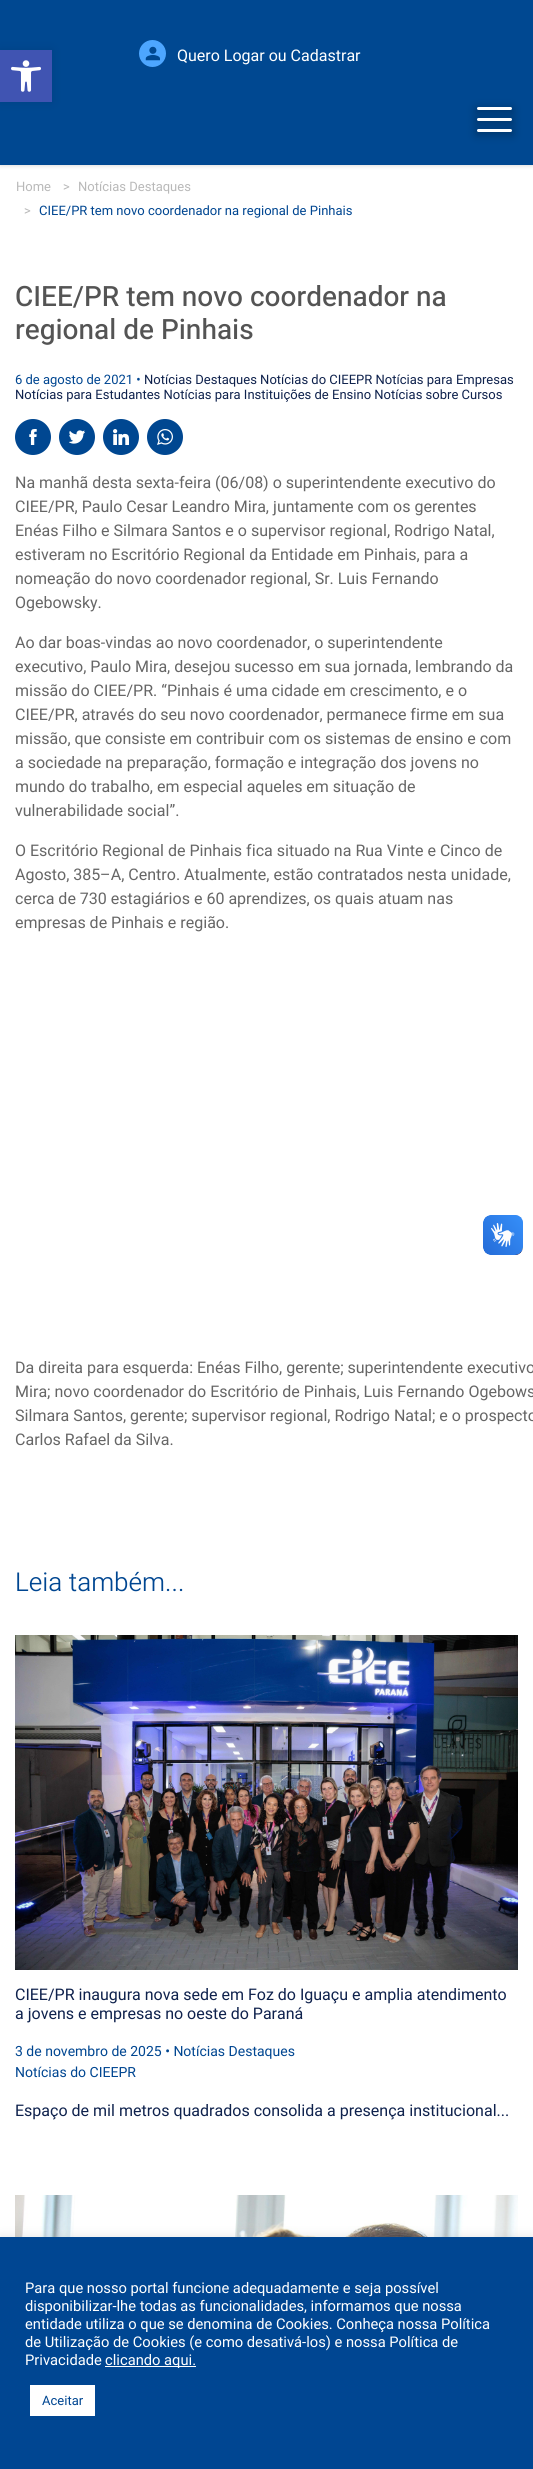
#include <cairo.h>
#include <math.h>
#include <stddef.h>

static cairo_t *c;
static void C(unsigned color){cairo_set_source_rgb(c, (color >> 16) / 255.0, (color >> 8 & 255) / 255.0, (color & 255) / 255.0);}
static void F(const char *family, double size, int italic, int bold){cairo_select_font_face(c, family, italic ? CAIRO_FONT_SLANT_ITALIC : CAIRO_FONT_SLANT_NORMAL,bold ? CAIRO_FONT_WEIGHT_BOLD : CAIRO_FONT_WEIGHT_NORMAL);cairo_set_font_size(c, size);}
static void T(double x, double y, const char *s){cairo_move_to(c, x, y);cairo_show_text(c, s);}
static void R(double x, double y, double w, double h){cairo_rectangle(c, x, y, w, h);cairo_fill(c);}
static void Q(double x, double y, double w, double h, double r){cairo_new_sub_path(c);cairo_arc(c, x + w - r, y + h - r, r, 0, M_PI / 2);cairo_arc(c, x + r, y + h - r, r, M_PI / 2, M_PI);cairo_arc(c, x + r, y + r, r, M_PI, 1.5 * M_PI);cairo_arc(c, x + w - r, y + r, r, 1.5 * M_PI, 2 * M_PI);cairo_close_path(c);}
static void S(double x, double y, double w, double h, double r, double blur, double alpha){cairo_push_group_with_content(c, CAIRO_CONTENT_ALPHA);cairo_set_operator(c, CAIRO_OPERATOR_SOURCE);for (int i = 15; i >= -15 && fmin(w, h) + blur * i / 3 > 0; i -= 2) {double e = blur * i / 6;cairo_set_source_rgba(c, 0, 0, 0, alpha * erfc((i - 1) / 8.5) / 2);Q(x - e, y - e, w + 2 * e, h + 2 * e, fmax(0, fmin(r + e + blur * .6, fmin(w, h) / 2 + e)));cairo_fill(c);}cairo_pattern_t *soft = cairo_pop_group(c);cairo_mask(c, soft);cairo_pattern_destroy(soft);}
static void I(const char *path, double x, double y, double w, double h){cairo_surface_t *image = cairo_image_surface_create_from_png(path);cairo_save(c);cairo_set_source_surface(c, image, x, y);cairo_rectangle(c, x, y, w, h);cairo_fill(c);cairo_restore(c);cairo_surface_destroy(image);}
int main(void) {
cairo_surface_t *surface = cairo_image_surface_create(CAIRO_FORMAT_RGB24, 533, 2469);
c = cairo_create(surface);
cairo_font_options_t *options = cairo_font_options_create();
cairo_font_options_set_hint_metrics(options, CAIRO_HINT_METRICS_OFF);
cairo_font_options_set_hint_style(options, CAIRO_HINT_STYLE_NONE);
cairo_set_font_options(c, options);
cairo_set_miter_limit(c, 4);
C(0xffffff);
cairo_paint(c);
C(0x000000);
S(0,0,533,165,0,2.5,.2);
C(0x004891);
R(0,0,533,165);
C(0x000000);
S(0,50,52,52,0,5,.1);
C(0x4054b2);
R(0,50,52,52);
I("1.png",11,60,30,32);
I("2.png",139,40,27,27);
F("Heebo",16,0,0);
C(0xffffff);
T(177,61,"Quero Logar ou Cadastrar");
C(0x000000);
S(477,109,35,3,1.5,5,.3);
C(0xffffff);
Q(477,107,35,3,1.5);
cairo_fill(c);
C(0x000000);
S(477,120,35,3,1.5,5,.3);
C(0xffffff);
Q(477,118,35,3,1.5);
cairo_fill(c);
C(0x000000);
S(477,131,35,3,1.5,5,.3);
C(0xffffff);
Q(477,129,35,3,1.5);
cairo_fill(c);
F("Heebo",13,0,0);
C(0xb9b9b9);
T(16,191,"Home");
T(63,191,">");
T(78,191,"Notícias Destaques");
T(24,215,">");
C(0x004691);
T(39,215,"CIEE/PR tem novo coordenador na regional de Pinhais");
F("Heebo Medium",28,0,0);
C(0x545454);
T(15,306,"CIEE/PR tem novo coordenador na");
T(15,339,"regional de Pinhais");
F("Heebo",13,0,0);
C(0x004691);
T(15,384,"6 de agosto de 2021 •");
C(0x0f224d);
T(144,384,"Notícias Destaques Notícias do CIEEPR Notícias para Empresas");
T(15,399,"Notícias para Estudantes Notícias para Instituições de Ensino Notícias sobre Cursos");
C(0x004791);
cairo_new_path(c);
cairo_arc(c,33,437,18,0,2 * M_PI);
cairo_fill(c);
I("3.png",29,429,8,16);
cairo_arc(c,77,437,18,0,2 * M_PI);
cairo_fill(c);
I("4.png",69,430,16,14);
cairo_arc(c,121,437,18,0,2 * M_PI);
cairo_fill(c);
I("5.png",113,429,16,16);
cairo_arc(c,165,437,18,0,2 * M_PI);
cairo_fill(c);
I("6.png",157,429,16,16);
F("Heebo",16,0,0);
C(0x666666);
T(15,488,"Na manhã desta sexta-feira (06/08) o superintendente executivo do");
T(15,512,"CIEE/PR, Paulo Cesar Leandro Mira, juntamente com os gerentes");
T(15,536,"Enéas Filho e Silmara Santos e o supervisor regional, Rodrigo Natal,");
T(15,560,"estiveram no Escritório Regional da Entidade em Pinhais, para a");
T(15,584,"nomeação do novo coordenador regional, Sr. Luis Fernando");
T(15,608,"Ogebowsky.");
T(15,648,"Ao dar boas-vindas ao novo coordenador, o superintendente");
T(15,672,"executivo, Paulo Mira, desejou sucesso em sua jornada, lembrando da");
T(15,696,"missão do CIEE/PR. “Pinhais é uma cidade em crescimento, e o");
T(15,720,"CIEE/PR, através do seu novo coordenador, permanece firme em sua");
T(15,744,"missão, que consiste em contribuir com os sistemas de ensino e com");
T(15,768,"a sociedade na preparação, formação e integração dos jovens no");
T(15,792,"mundo do trabalho, em especial aqueles em situação de");
T(15,816,"vulnerabilidade social”.");
T(15,856,"O Escritório Regional de Pinhais fica situado na Rua Vinte e Cinco de");
T(15,880,"Agosto, 385–A, Centro. Atualmente, estão contratados nesta unidade,");
T(15,904,"cerca de 730 estagiários e 60 aprendizes, os quais atuam nas");
T(15,928,"empresas de Pinhais e região.");
T(15,1373,"Da direita para esquerda: Enéas Filho, gerente; superintendente executivo");
T(15,1397,"Mira; novo coordenador do Escritório de Pinhais, Luis Fernando Ogebows");
T(15,1421,"Silmara Santos, gerente; supervisor regional, Rodrigo Natal; e o prospecto");
T(15,1445,"Carlos Rafael da Silva.");
F("Heebo Light",26,0,0);
C(0x004691);
T(15,1591,"Leia também...");
I("7.png",15,1635,503,335);
F("Heebo",16,0,0);
C(0x0f224d);
T(15,2000,"CIEE/PR inaugura nova sede em Foz do Iguaçu e amplia atendimento");
T(15,2019,"a jovens e empresas no oeste do Paraná");
F("Heebo",14,0,0);
C(0x004691);
T(15,2056,"3 de novembro de 2025 • Notícias Destaques");
T(15,2077,"Notícias do CIEEPR");
F("Heebo",16,0,0);
C(0x0f224d);
T(15,2116,"Espaço de mil metros quadrados consolida a presença institucional...");
I("8.png",15,2195,503,42);
I("9.png",483,1215,40,40);
I("10.png",483,1215,40,40);
C(0xacabab);
S(0,2236,533,232,0,5,.3);
C(0x004692);
R(0,2237,533,232);
F("Heebo",14.7,0,0);
C(0xffffff);
T(25,2293,"Para que nosso portal funcione adequadamente e seja possível");
T(25,2311,"disponibilizar-lhe todas as funcionalidades, informamos que nossa");
T(25,2329,"entidade utiliza o que se denomina de Cookies. Conheça nossa Política");
T(25,2347,"de Utilização de Cookies (e como desativá-los) e nossa Política de");
T(25,2365,"Privacidade");
R(105,2366,91,1);
T(105,2365,"clicando aqui.");
R(30,2385,65,31);
F("Heebo",13,0,0);
C(0x004691);
T(42,2405,"Aceitar");
cairo_surface_write_to_png(surface, "o.png");
cairo_font_options_destroy(options);
cairo_destroy(c);
cairo_surface_destroy(surface);
return 0;
}
